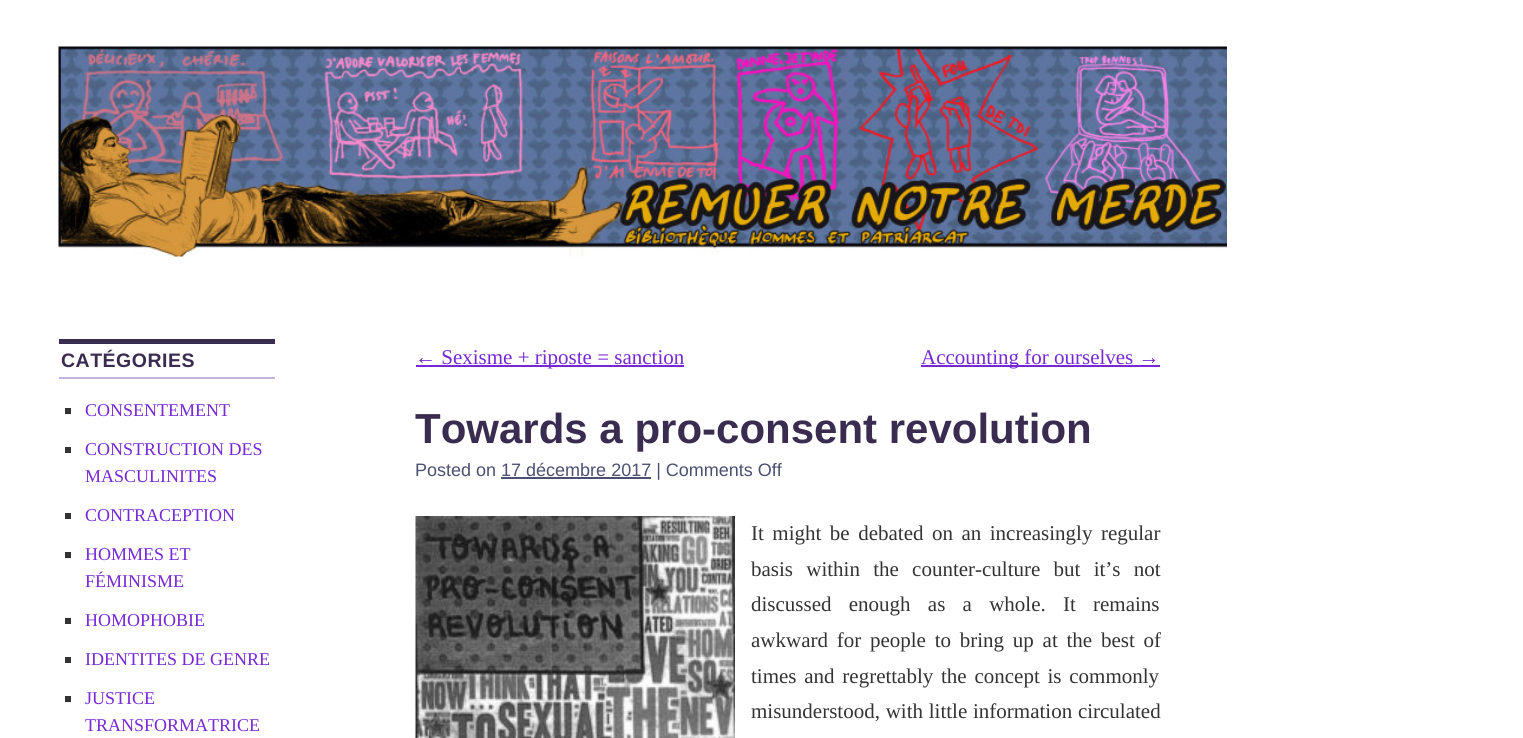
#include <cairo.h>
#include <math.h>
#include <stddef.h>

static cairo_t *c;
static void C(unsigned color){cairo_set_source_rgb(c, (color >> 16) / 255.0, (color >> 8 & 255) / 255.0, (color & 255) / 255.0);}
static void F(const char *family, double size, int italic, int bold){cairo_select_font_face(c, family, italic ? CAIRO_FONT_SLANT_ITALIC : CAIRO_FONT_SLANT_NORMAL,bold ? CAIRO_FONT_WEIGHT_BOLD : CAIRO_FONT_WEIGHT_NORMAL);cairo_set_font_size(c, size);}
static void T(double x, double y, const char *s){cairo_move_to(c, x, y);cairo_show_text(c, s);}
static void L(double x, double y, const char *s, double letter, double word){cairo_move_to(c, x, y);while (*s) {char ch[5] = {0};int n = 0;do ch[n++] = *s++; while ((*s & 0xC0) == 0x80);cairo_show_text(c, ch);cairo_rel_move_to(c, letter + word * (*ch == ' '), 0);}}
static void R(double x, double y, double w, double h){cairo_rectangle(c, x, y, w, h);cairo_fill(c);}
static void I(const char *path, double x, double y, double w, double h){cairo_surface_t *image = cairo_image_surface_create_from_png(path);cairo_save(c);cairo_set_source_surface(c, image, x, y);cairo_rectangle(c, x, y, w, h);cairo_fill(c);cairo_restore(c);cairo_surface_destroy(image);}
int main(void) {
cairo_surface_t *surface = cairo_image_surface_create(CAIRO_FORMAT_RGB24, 1523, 738);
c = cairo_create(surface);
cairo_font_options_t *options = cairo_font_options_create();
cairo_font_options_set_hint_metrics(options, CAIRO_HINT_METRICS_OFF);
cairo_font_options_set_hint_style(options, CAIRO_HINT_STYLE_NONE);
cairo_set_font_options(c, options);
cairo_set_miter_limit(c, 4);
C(0xffffff);
cairo_paint(c);
I("1.png",58,46,1169,211);
C(0x3a2c50);
R(59,339,216,5);
C(0xc5b2de);
R(59,377,216,2);
F("Liberation Sans",19.5,0,1);
C(0x3a2c50);
L(61,367,"CATÉGORIES",.5,0);
C(0x333333);
R(65,408,6,6);
F("Liberation Serif",18,0,0);
C(0x7728d6);
T(85,416,"CONSENTEMENT");
C(0x333333);
R(65,447,6,6);
C(0x7728d6);
T(85,455,"CONSTRUCTION DES");
T(85,482,"MASCULINITES");
C(0x333333);
R(65,513,6,6);
C(0x7728d6);
T(85,521,"CONTRACEPTION");
C(0x333333);
R(65,552,6,6);
C(0x7728d6);
T(85,560,"HOMMES ET");
T(85,587,"FÉMINISME");
C(0x333333);
R(65,618,6,6);
C(0x7728d6);
T(85,626,"HOMOPHOBIE");
C(0x333333);
R(65,657,6,6);
C(0x7728d6);
T(85,665,"IDENTITES DE GENRE");
C(0x333333);
R(65,696,6,6);
C(0x7728d6);
T(85,704,"JUSTICE");
T(85,731,"TRANSFORMATRICE");
R(416,365,268,2);
F("Liberation Serif",21,0,0);
T(415,364,"← Sexisme + riposte = sanction");
R(921,365,239,2);
T(921,364,"Accounting for ourselves →");
F("Liberation Sans",42,0,1);
C(0x3a2c50);
T(415,443,"Towards a pro-consent revolution");
F("Liberation Sans",18,0,0);
C(0x4b5071);
T(415,476,"Posted on 17 décembre 2017 | Comments Off");
R(501,477,150,2);
I("2.png",415,516,320,222);
F("Liberation Serif",21,0,0);
C(0x333333);
L(751,540,"It might be debated on an increasingly regular",0,3.25);
L(751,576,"basis within the counter-culture but it’s not",0,8);
L(751,611,"discussed enough as a whole. It remains",0,12);
L(751,647,"awkward for people to bring up at the best of",0,3.5);
L(751,683,"times and regrettably the concept is commonly",0,2.5);
L(751,718,"misunderstood, with little information circulated",0,.5);
cairo_surface_write_to_png(surface, "o.png");
cairo_font_options_destroy(options);
cairo_destroy(c);
cairo_surface_destroy(surface);
return 0;
}
